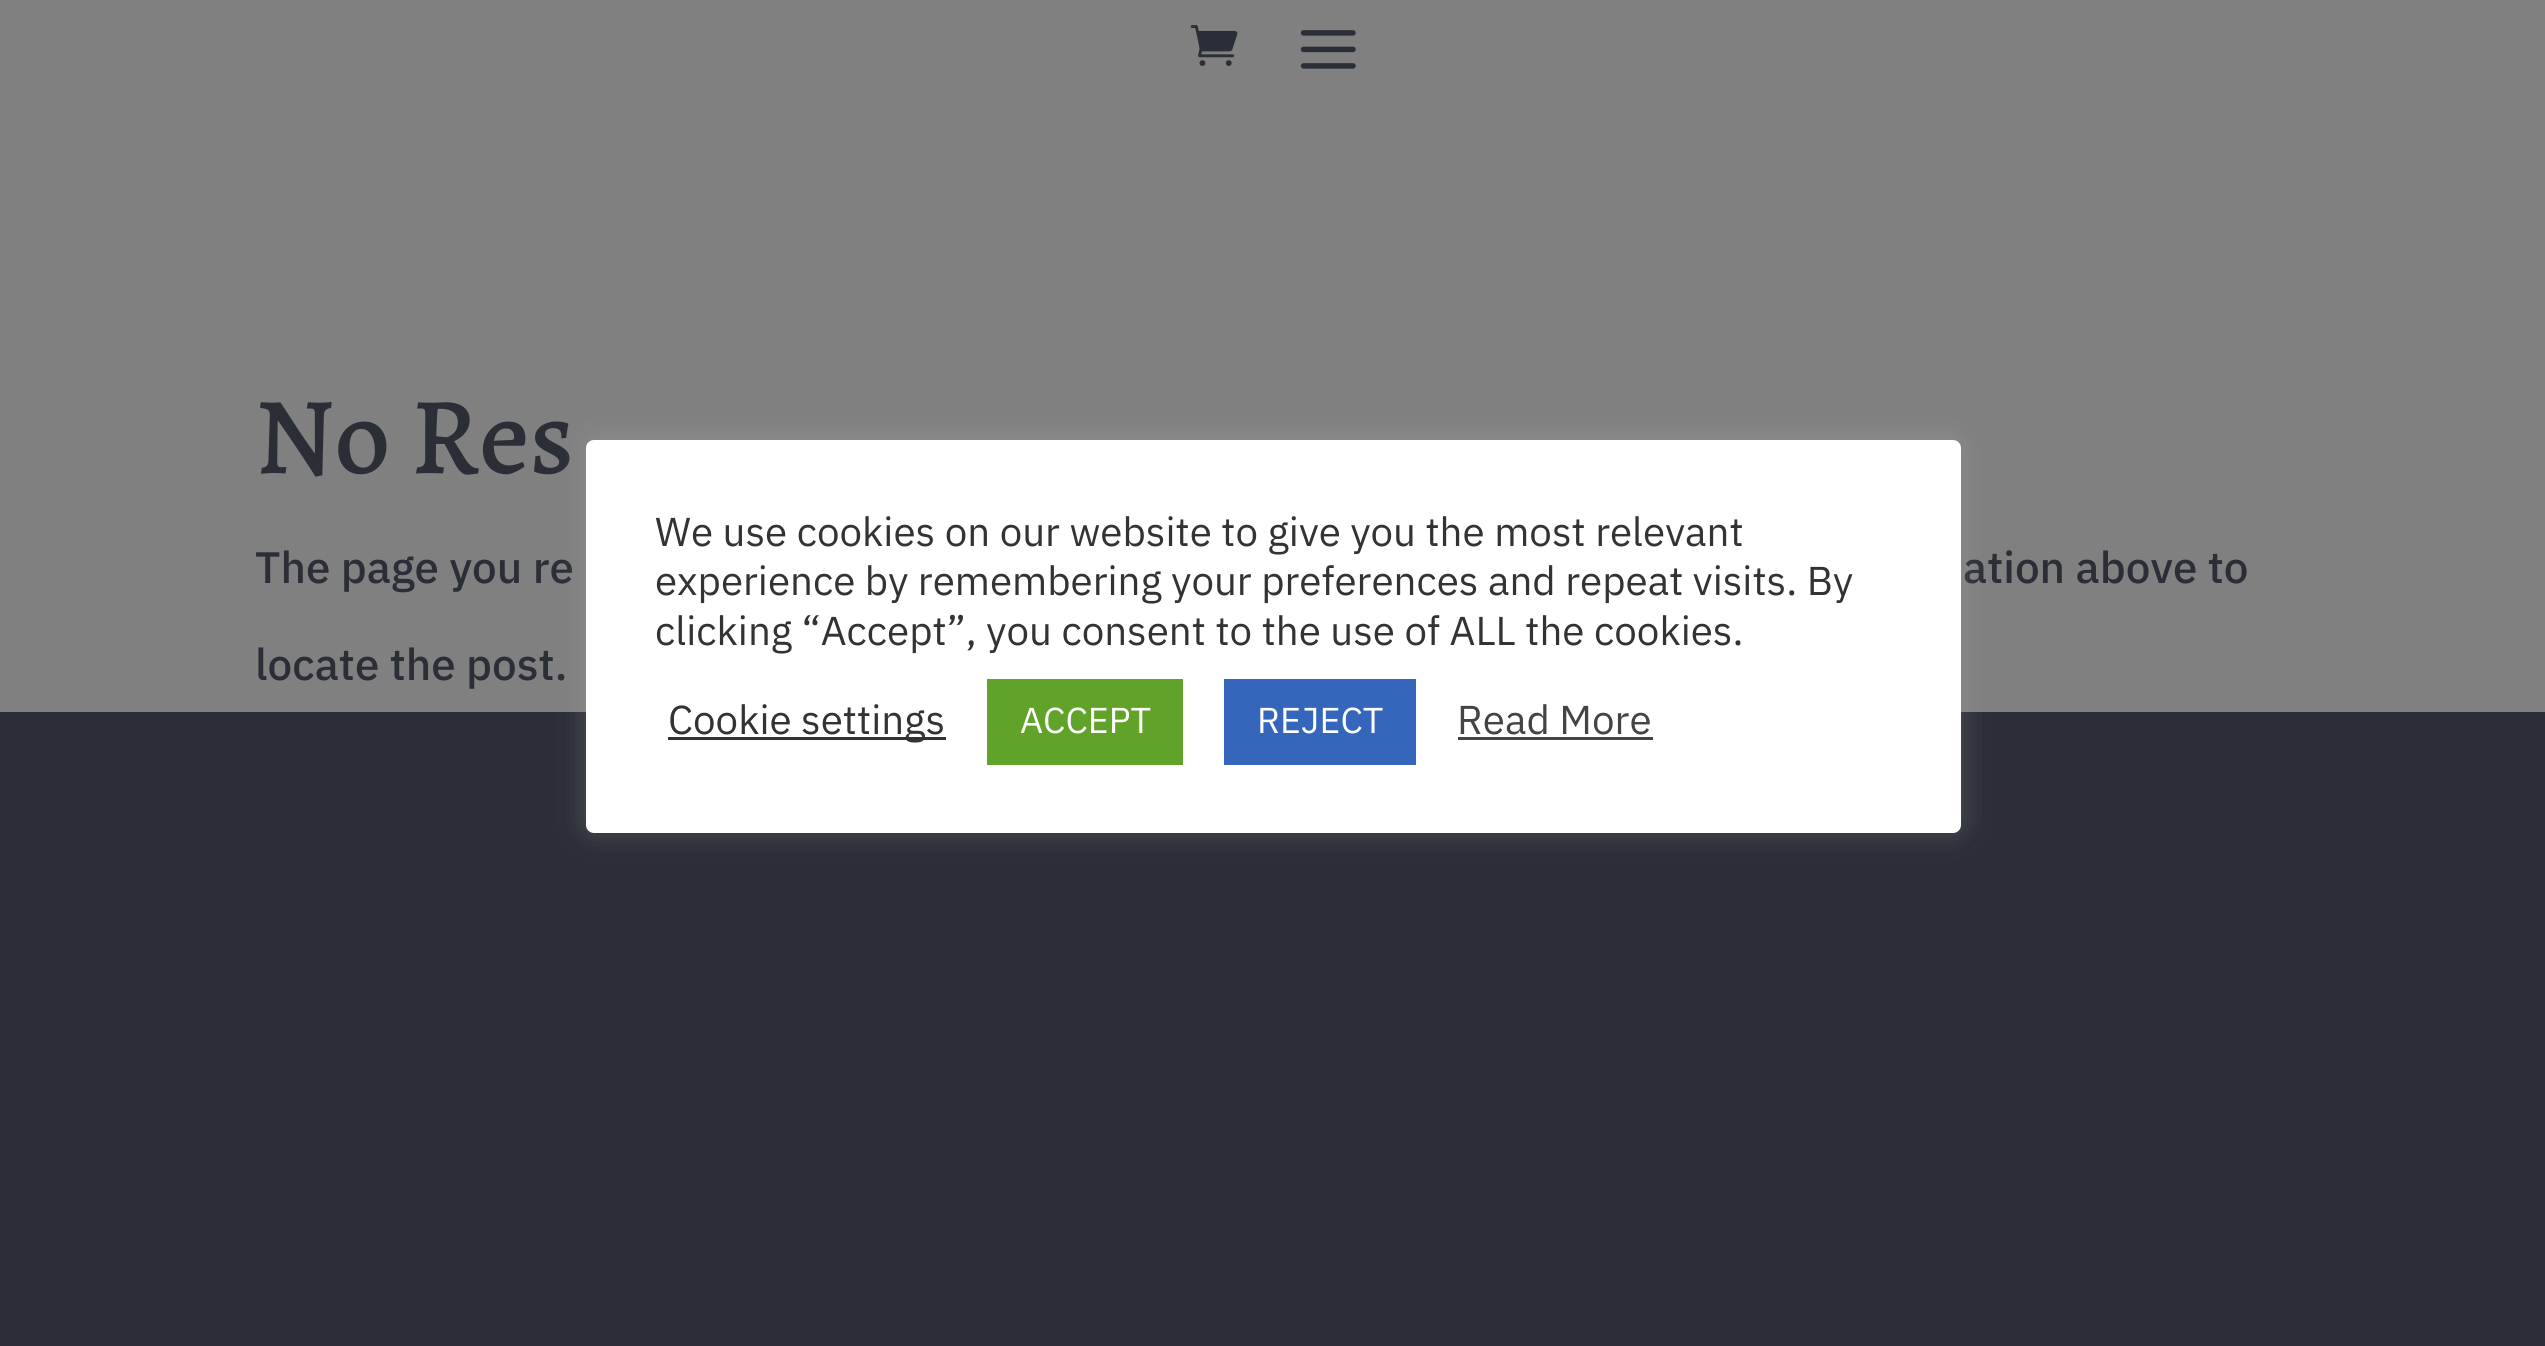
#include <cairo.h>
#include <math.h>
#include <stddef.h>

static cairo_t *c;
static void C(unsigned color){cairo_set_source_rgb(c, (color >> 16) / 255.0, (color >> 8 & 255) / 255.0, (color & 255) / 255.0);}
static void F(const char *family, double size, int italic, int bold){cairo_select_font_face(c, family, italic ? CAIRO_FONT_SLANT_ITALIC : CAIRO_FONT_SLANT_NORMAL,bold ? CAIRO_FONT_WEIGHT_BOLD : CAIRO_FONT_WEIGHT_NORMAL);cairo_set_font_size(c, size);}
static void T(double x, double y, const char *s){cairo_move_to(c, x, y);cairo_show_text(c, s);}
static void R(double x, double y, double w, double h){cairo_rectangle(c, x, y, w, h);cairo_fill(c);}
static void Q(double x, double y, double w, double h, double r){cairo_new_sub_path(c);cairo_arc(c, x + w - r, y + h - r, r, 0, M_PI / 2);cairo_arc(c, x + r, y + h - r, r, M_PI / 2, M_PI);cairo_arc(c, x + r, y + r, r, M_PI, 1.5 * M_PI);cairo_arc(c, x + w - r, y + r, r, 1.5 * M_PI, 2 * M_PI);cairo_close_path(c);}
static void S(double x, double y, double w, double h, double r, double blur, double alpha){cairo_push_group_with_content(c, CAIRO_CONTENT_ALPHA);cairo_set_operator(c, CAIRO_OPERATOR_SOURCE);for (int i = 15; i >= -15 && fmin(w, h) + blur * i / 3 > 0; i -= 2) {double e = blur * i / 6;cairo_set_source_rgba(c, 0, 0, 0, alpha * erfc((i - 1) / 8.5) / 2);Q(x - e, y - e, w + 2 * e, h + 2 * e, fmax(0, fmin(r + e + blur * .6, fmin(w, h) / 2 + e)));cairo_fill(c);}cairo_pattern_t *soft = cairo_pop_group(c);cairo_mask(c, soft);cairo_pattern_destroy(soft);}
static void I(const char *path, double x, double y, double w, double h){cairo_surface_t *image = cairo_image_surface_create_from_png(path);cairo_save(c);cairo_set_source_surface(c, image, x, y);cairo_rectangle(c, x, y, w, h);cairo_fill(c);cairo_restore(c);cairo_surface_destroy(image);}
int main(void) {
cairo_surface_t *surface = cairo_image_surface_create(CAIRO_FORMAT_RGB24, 2545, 1346);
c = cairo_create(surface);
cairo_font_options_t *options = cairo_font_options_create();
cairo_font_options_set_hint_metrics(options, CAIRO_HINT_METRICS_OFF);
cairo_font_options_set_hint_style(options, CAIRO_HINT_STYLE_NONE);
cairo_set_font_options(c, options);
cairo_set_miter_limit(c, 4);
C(0x2b2e37);
cairo_paint(c);
C(0x808080);
R(0,0,2545,223);
I("1.png",1190,25,48,41);
I("2.png",1300,30,56,39);
R(0,223,2545,489);
F("Alegreya Medium",110,0,0);
C(0x2b2e37);
T(255,473,"No Res");
F("IBM Plex Sans Medium",44,0,0);
T(255,583,"The page you re");
T(1963,583,"ation above to");
T(255,680,"locate the post.");
C(0xacabab);
S(586,437,1375,394,8,14,.3);
C(0xffffff);
Q(586,440,1375,393,8);
cairo_fill(c);
F("IBM Plex Sans",40.3,0,0);
C(0x333333);
T(655,546,"We use cookies on our website to give you the most relevant");
T(655,595,"experience by remembering your preferences and repeat visits. By");
T(655,645,"clicking “Accept”, you consent to the use of ALL the cookies.");
R(668,737,278,3);
T(668,734,"Cookie settings");
C(0x61a229);
R(987,679,196,86);
F("IBM Plex Sans",36,0,0);
C(0xffffff);
T(1020,733,"ACCEPT");
C(0x3566bb);
R(1224,679,192,86);
C(0xffffff);
T(1257,733,"REJECT");
F("IBM Plex Sans",40.3,0,0);
C(0x444444);
T(1457,734,"Read More");
R(1458,737,195,3);
cairo_surface_write_to_png(surface, "o.png");
cairo_font_options_destroy(options);
cairo_destroy(c);
cairo_surface_destroy(surface);
return 0;
}
